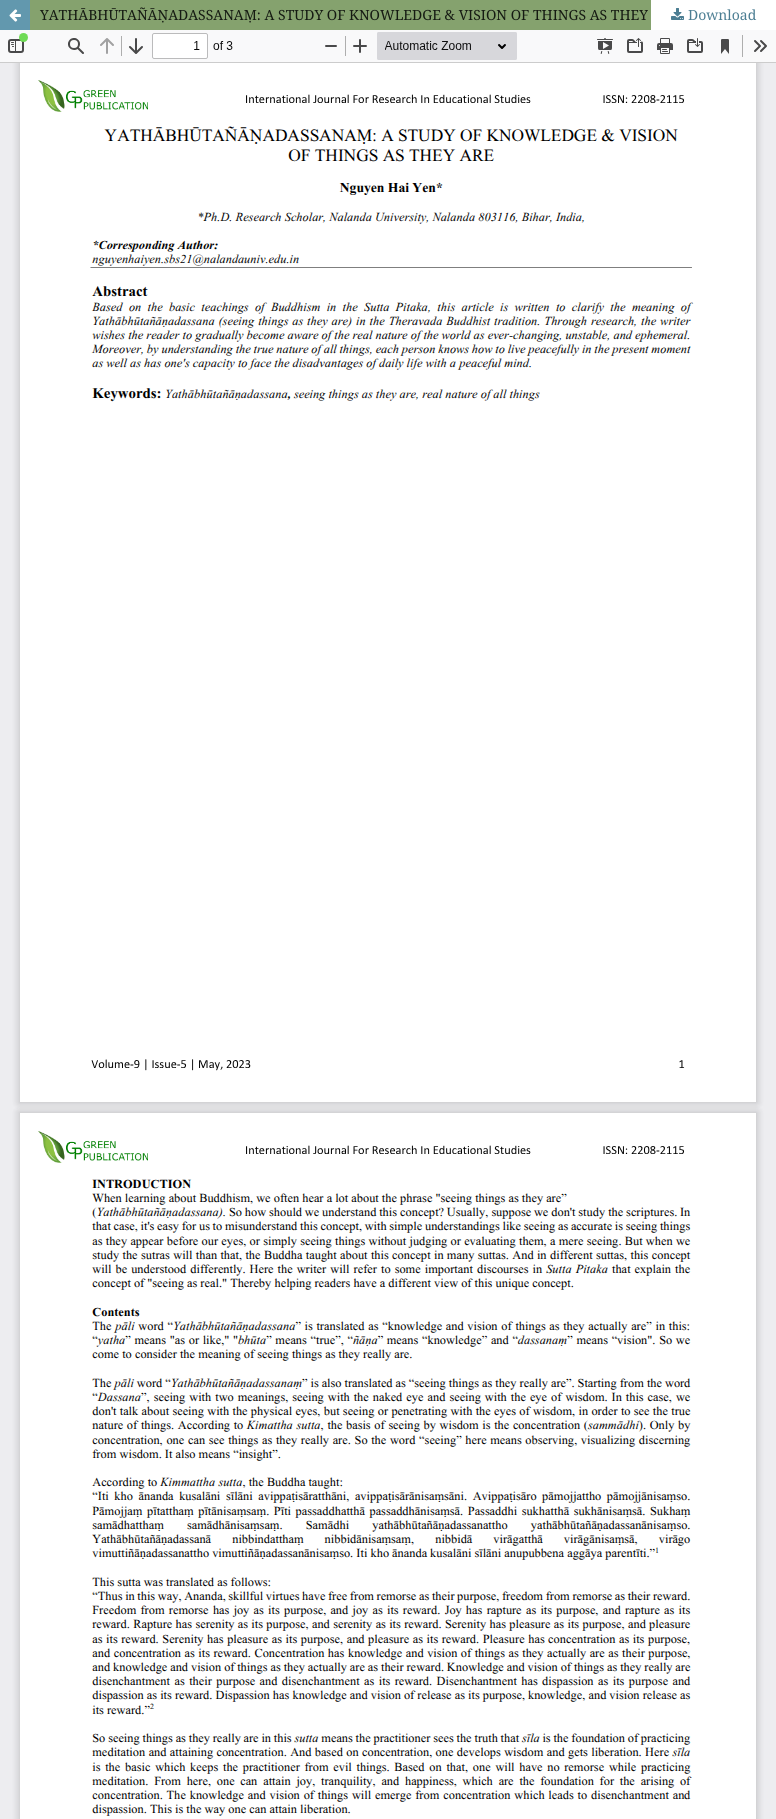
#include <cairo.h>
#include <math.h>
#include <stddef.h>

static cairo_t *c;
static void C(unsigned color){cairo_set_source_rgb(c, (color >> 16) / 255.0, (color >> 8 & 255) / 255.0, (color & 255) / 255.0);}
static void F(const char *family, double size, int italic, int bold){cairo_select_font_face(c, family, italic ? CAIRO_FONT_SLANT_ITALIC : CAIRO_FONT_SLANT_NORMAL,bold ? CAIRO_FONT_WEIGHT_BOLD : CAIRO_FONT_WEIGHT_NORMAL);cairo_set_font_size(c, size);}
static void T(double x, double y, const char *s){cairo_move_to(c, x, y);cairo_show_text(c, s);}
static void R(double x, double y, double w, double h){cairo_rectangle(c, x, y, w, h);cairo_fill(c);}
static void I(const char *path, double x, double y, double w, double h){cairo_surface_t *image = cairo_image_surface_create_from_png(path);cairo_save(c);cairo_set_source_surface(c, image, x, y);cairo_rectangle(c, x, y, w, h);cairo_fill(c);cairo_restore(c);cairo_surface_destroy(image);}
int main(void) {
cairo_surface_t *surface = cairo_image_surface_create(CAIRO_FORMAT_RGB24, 776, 1819);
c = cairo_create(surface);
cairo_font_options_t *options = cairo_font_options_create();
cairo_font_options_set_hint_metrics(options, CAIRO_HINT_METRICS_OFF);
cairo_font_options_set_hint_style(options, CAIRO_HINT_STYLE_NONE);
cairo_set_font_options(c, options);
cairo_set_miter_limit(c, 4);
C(0xffffff);
cairo_paint(c);
C(0x85a26e);
R(30,0,621,30);
C(0x6298ae);
R(0,0,30,30);
I("1.png",9,9,12,13);
F("Noto Serif",14,0,0);
C(0x151a12);
T(40,20,"YATHĀBHŪTAÑĀṆADASSANAṂ: A STUDY OF KNOWLEDGE & VISION OF THINGS AS THEY");
I("2.png",671,8,13,12);
C(0x4b7d92);
T(688,20,"Download");
I("3.png",0,30,776,1789);
cairo_surface_write_to_png(surface, "o.png");
cairo_font_options_destroy(options);
cairo_destroy(c);
cairo_surface_destroy(surface);
return 0;
}
